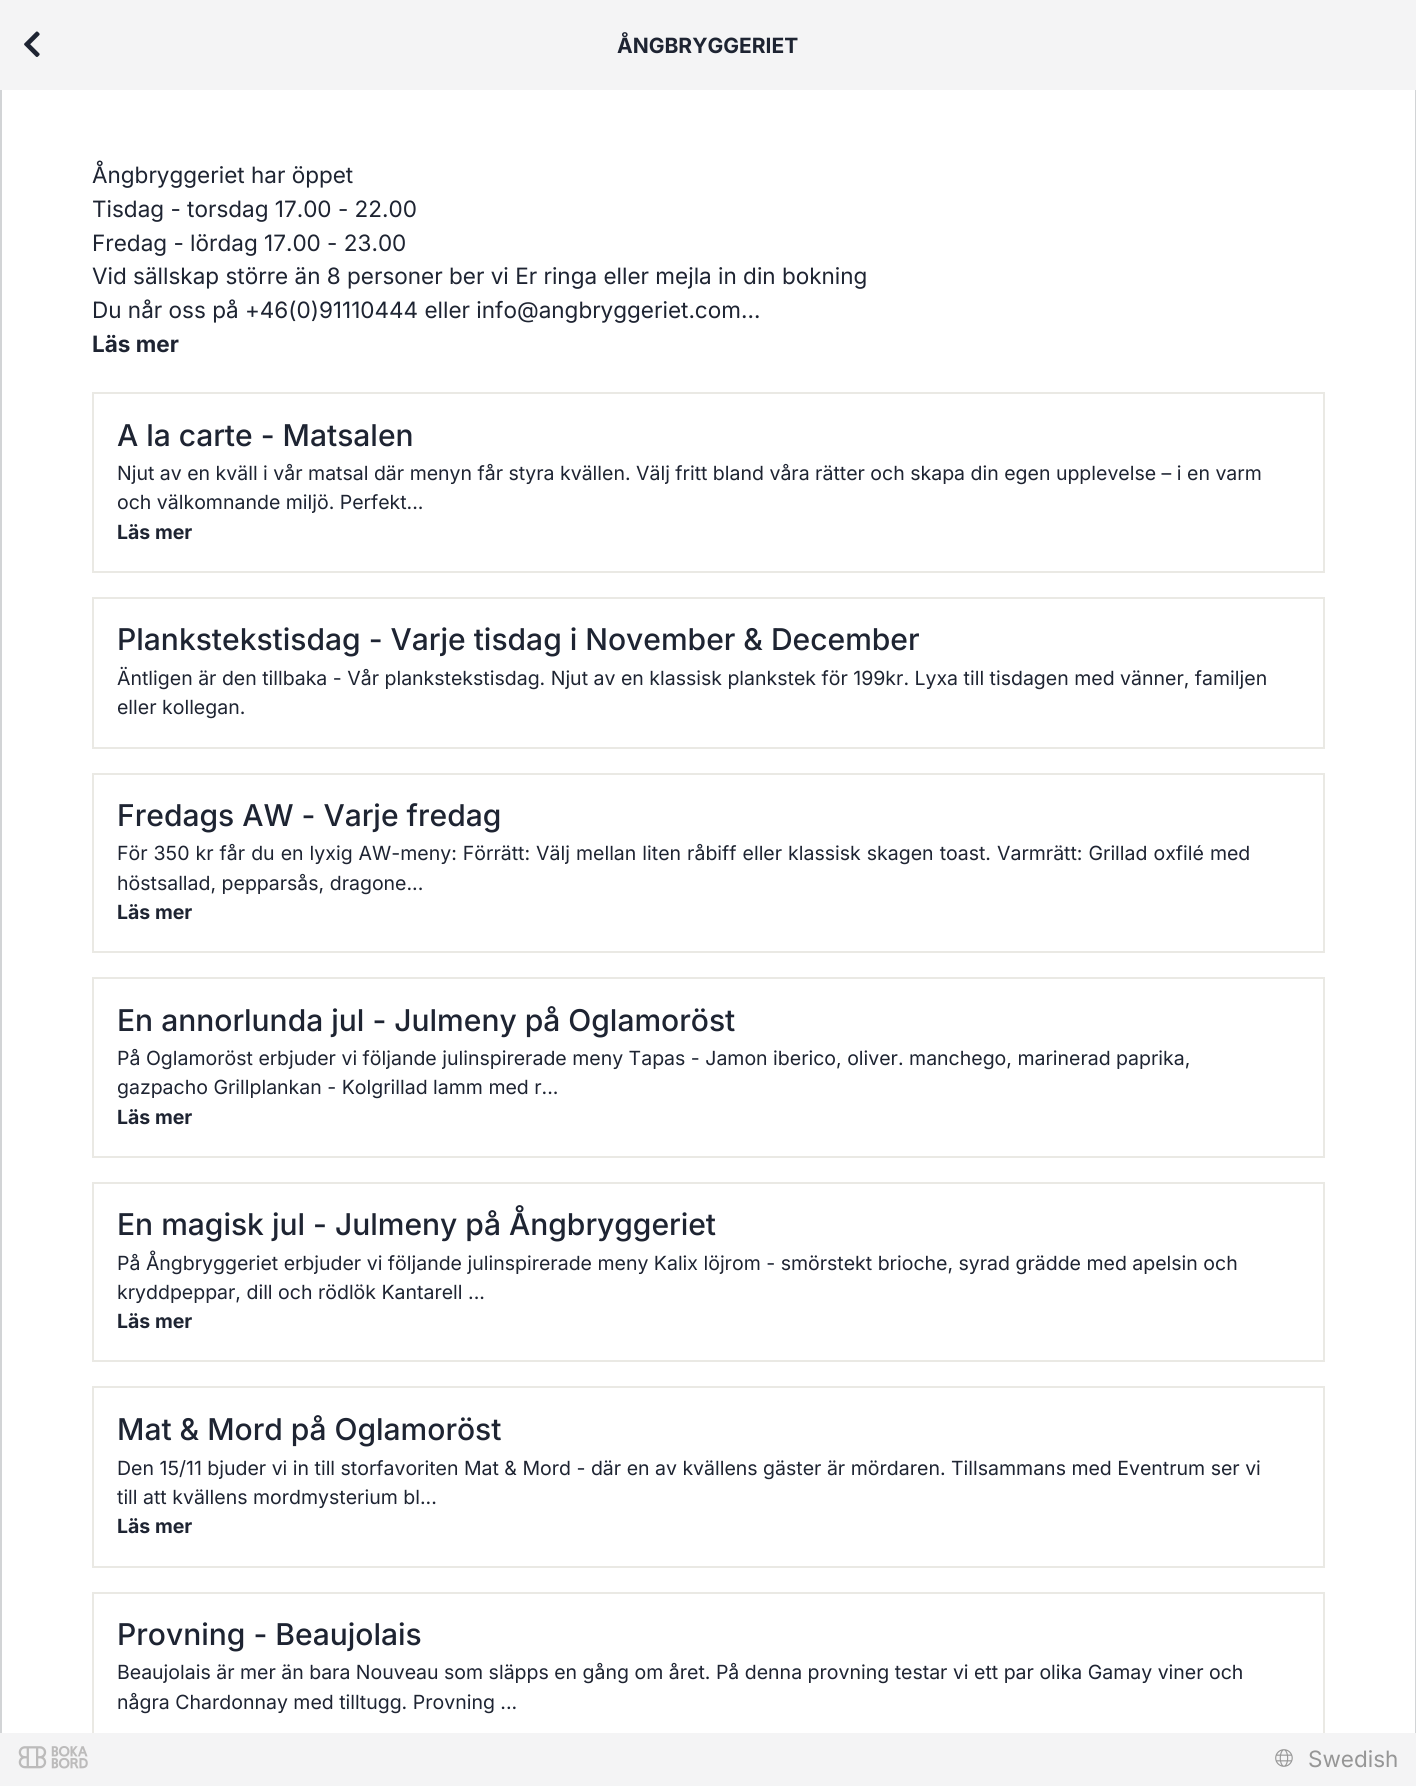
#include <cairo.h>
#include <math.h>
#include <stddef.h>

static cairo_t *c;
static void C(unsigned color){cairo_set_source_rgb(c, (color >> 16) / 255.0, (color >> 8 & 255) / 255.0, (color & 255) / 255.0);}
static void F(const char *family, double size, int italic, int bold){cairo_select_font_face(c, family, italic ? CAIRO_FONT_SLANT_ITALIC : CAIRO_FONT_SLANT_NORMAL,bold ? CAIRO_FONT_WEIGHT_BOLD : CAIRO_FONT_WEIGHT_NORMAL);cairo_set_font_size(c, size);}
static void T(double x, double y, const char *s){cairo_move_to(c, x, y);cairo_show_text(c, s);}
static void L(double x, double y, const char *s, double letter, double word){cairo_move_to(c, x, y);while (*s) {char ch[5] = {0};int n = 0;do ch[n++] = *s++; while ((*s & 0xC0) == 0x80);cairo_show_text(c, ch);cairo_rel_move_to(c, letter + word * (*ch == ' '), 0);}}
static void R(double x, double y, double w, double h){cairo_rectangle(c, x, y, w, h);cairo_fill(c);}
static void I(const char *path, double x, double y, double w, double h){cairo_surface_t *image = cairo_image_surface_create_from_png(path);cairo_save(c);cairo_set_source_surface(c, image, x, y);cairo_rectangle(c, x, y, w, h);cairo_fill(c);cairo_restore(c);cairo_surface_destroy(image);}
int main(void) {
cairo_surface_t *surface = cairo_image_surface_create(CAIRO_FORMAT_RGB24, 1416, 1786);
c = cairo_create(surface);
cairo_font_options_t *options = cairo_font_options_create();
cairo_font_options_set_hint_metrics(options, CAIRO_HINT_METRICS_OFF);
cairo_font_options_set_hint_style(options, CAIRO_HINT_STYLE_NONE);
cairo_set_font_options(c, options);
cairo_set_miter_limit(c, 4);
C(0xf4f4f5);
cairo_paint(c);
I("1.png",24,31,16,26);
F("Inter",21,0,1);
C(0x1e2432);
T(617,53,"ÅNGBRYGGERIET");
C(0xffffff);
R(2,90,1413,1643);
C(0xd2d4d6);
R(1415,90,1,1643);
R(0,90,2,1643);
F("Inter",22.5,0,0);
C(0x1e2432);
T(92,183,"Ångbryggeriet har öppet");
T(92,217,"Tisdag - torsdag 17.00 - 22.00");
T(92,251,"Fredag - lördag 17.00 - 23.00");
T(92,284,"Vid sällskap större än 8 personer ber vi Er ringa eller mejla in din bokning");
T(92,318,"Du når oss på +46(0)91110444 eller info@angbryggeriet.com…");
F("Inter",22.5,0,1);
T(92,352,"Läs mer");
cairo_rectangle(c,93,393,1231,179);
C(0xeae9e4);
cairo_stroke(c);
F("Inter Medium",30,0,0);
C(0x1e2432);
T(117,446,"A la carte - Matsalen");
F("Inter",19.5,0,0);
T(117,480,"Njut av en kväll i vår matsal där menyn får styra kvällen. Välj fritt bland våra rätter och skapa din egen upplevelse – i en varm");
T(117,509,"och välkomnande miljö. Perfekt...");
F("Inter",19.5,0,1);
T(117,539,"Läs mer");
cairo_rectangle(c,93,598,1231,150);
C(0xeae9e4);
cairo_stroke(c);
F("Inter Medium",30,0,0);
C(0x1e2432);
T(117,650,"Plankstekstisdag - Varje tisdag i November & December");
F("Inter",19.5,0,0);
T(117,685,"Äntligen är den tillbaka - Vår plankstekstisdag. Njut av en klassisk plankstek för 199kr. Lyxa till tisdagen med vänner, familjen");
T(117,714,"eller kollegan.");
cairo_rectangle(c,93,774,1231,178);
C(0xeae9e4);
cairo_stroke(c);
F("Inter Medium",30,0,0);
C(0x1e2432);
T(117,826,"Fredags AW - Varje fredag");
F("Inter",19.5,0,0);
L(117,860,"För 350 kr får du en lyxig AW-meny: Förrätt: Välj mellan liten råbiff eller klassisk skagen toast. Varmrätt: Grillad oxfilé med",0,.55);
T(117,890,"höstsallad, pepparsås, dragone...");
F("Inter",19.5,0,1);
T(117,919,"Läs mer");
cairo_rectangle(c,93,978,1231,179);
C(0xeae9e4);
cairo_stroke(c);
F("Inter Medium",30,0,0);
C(0x1e2432);
T(117,1031,"En annorlunda jul - Julmeny på Oglamoröst");
F("Inter",19.5,0,0);
T(117,1065,"På Oglamoröst erbjuder vi följande julinspirerade meny Tapas - Jamon iberico, oliver. manchego, marinerad paprika,");
T(117,1094,"gazpacho Grillplankan - Kolgrillad lamm med r...");
F("Inter",19.5,0,1);
T(117,1124,"Läs mer");
cairo_rectangle(c,93,1183,1231,178);
C(0xeae9e4);
cairo_stroke(c);
F("Inter Medium",30,0,0);
C(0x1e2432);
T(117,1235,"En magisk jul - Julmeny på Ångbryggeriet");
F("Inter",19.5,0,0);
T(117,1270,"På Ångbryggeriet erbjuder vi följande julinspirerade meny Kalix löjrom - smörstekt brioche, syrad grädde med apelsin och");
T(117,1299,"kryddpeppar, dill och rödlök Kantarell ...");
F("Inter",19.5,0,1);
T(117,1328,"Läs mer");
cairo_rectangle(c,93,1387,1231,180);
C(0xeae9e4);
cairo_stroke(c);
F("Inter Medium",30,0,0);
C(0x1e2432);
T(117,1440,"Mat & Mord på Oglamoröst");
F("Inter",19.5,0,0);
T(117,1475,"Den 15/11 bjuder vi in till storfavoriten Mat & Mord - där en av kvällens gäster är mördaren. Tillsammans med Eventrum ser vi");
T(117,1504,"till att kvällens mordmysterium bl...");
F("Inter",19.5,0,1);
T(117,1533,"Läs mer");
cairo_save(c);
cairo_rectangle(c,2,90,1413,1643);
cairo_clip(c);
cairo_rectangle(c,93,1593,1231,178);
C(0xeae9e4);
cairo_stroke(c);
cairo_restore(c);
F("Inter Medium",30,0,0);
T(117,1645,"Provning - Beaujolais");
F("Inter",19.5,0,0);
T(117,1679,"Beaujolais är mer än bara Nouveau som släpps en gång om året. På denna provning testar vi ett par olika Gamay viner och");
T(117,1709,"några Chardonnay med tilltugg. Provning ...");
I("2.png",18,1746,70,23);
I("3.png",1275,1749,18,18);
F("Inter",22.5,0,0);
C(0x969696);
T(1308,1767,"Swedish");
cairo_surface_write_to_png(surface, "o.png");
cairo_font_options_destroy(options);
cairo_destroy(c);
cairo_surface_destroy(surface);
return 0;
}
